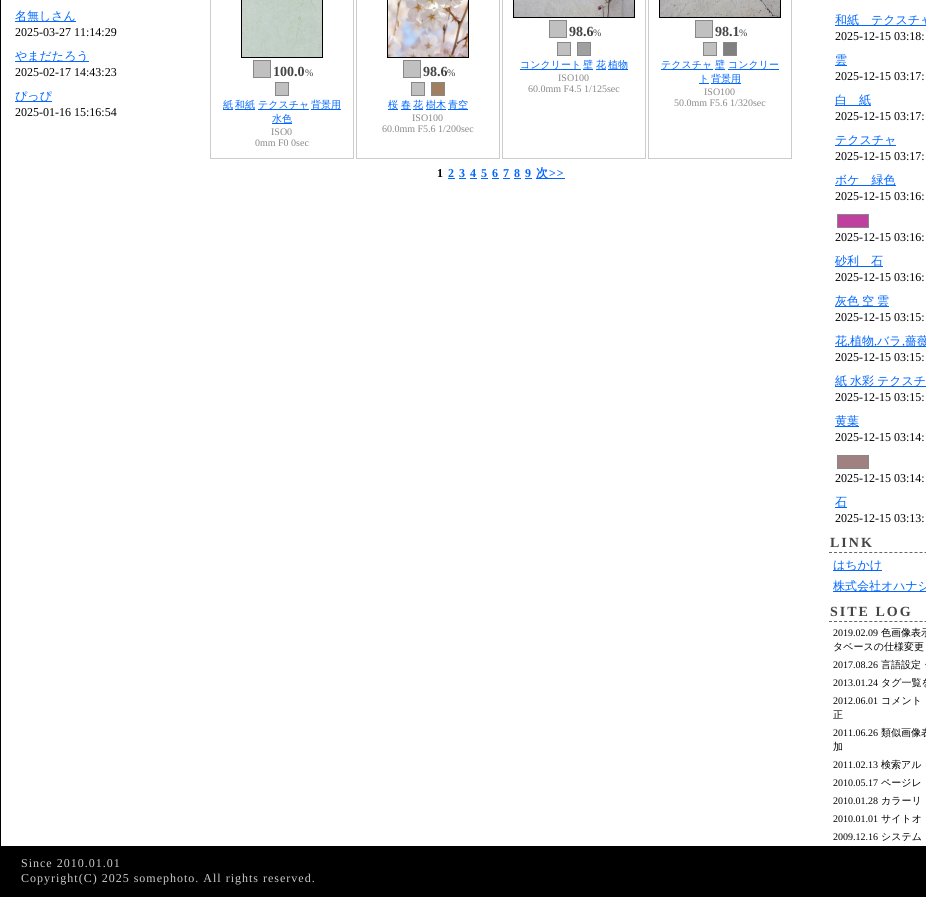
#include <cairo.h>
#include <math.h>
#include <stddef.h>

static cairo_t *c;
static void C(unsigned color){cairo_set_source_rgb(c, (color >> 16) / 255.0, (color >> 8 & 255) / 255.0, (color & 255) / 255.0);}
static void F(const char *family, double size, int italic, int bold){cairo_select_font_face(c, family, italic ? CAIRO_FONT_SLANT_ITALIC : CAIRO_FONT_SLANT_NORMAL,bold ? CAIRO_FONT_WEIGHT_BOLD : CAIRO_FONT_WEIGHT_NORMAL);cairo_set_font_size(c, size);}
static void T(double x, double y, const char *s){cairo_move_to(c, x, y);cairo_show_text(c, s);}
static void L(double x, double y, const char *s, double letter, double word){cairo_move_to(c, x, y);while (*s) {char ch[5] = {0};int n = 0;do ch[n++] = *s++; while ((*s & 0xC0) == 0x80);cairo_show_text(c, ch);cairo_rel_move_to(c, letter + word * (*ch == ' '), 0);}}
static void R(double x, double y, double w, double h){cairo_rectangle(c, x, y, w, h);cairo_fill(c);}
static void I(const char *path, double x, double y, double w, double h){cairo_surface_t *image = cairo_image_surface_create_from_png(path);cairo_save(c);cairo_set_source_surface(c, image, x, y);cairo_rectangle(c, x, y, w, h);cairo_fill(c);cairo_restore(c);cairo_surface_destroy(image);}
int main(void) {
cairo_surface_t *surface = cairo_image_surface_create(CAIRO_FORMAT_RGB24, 926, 897);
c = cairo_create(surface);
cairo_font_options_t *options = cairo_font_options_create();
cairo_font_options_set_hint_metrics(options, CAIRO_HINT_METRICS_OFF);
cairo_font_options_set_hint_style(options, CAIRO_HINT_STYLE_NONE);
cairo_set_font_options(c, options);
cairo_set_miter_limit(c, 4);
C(0xffffff);
cairo_paint(c);
cairo_rectangle(c,.5,-.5,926,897);
C(0x000000);
cairo_set_line_width(c,1);
cairo_stroke(c);
C(0x0066ff);
R(15,21,61,1);
F("WenQuanYi Zen Hei Medium",12,0,0);
T(15,20,"名無しさん");
F("Liberation Serif",12,0,0);
C(0x000000);
T(15,36,"2025-03-27 11:14:29");
C(0x0066ff);
R(15,61,74,1);
F("WenQuanYi Zen Hei Medium",12,0,0);
T(15,60,"やまだたろう");
F("Liberation Serif",12,0,0);
C(0x000000);
T(15,76,"2025-02-17 14:43:23");
C(0x0066ff);
R(15,101,37,1);
F("WenQuanYi Zen Hei Medium",12,0,0);
T(15,100,"ぴっぴ");
F("Liberation Serif",12,0,0);
C(0x000000);
T(15,116,"2025-01-16 15:16:54");
cairo_rectangle(c,210.5,-.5,143,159);
C(0xcccccc);
cairo_stroke(c);
cairo_rectangle(c,241.5,-.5,81,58);
C(0x000000);
cairo_stroke(c);
I("1.png",242,0,80,57);
cairo_rectangle(c,253.5,60.5,17,17);
C(0x888888);
cairo_stroke(c);
C(0xc0c0c0);
R(254,61,16,16);
F("Liberation Serif",14,0,1);
C(0x444444);
T(273,76,"100.0");
F("Liberation Serif",10,0,0);
T(305,76,"%");
cairo_rectangle(c,275.5,82.5,13,13);
C(0x888888);
cairo_stroke(c);
C(0xc0c0c0);
R(276,83,12,12);
C(0x0066ff);
R(223,109,10,1);
F("WenQuanYi Zen Hei Medium",10,0,0);
T(223,108,"紙");
R(235,109,20,1);
T(235,108,"和紙");
R(258,109,51,1);
T(258,108,"テクスチャ");
R(311,109,30,1);
T(311,108,"背景用");
R(272,123,20,1);
T(272,122,"水色");
F("Liberation Serif",10,0,0);
C(0x888888);
T(271,135,"ISO0");
T(255,146,"0mm F0 0sec");
cairo_rectangle(c,356.5,-.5,143,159);
C(0xcccccc);
cairo_stroke(c);
cairo_rectangle(c,387.5,-.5,81,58);
C(0x000000);
cairo_stroke(c);
I("2.png",388,0,80,57);
cairo_rectangle(c,403.5,60.5,17,17);
C(0x888888);
cairo_stroke(c);
C(0xc0c0c0);
R(404,61,16,16);
F("Liberation Serif",14,0,1);
C(0x444444);
T(423,76,"98.6");
F("Liberation Serif",10,0,0);
T(447,76,"%");
cairo_rectangle(c,411.5,82.5,13,13);
C(0x888888);
cairo_stroke(c);
cairo_rectangle(c,431.5,82.5,13,13);
cairo_stroke(c);
C(0xc0c0c0);
R(412,83,12,12);
C(0xa08060);
R(432,83,12,12);
C(0x0066ff);
R(388,109,10,1);
F("WenQuanYi Zen Hei Medium",10,0,0);
T(388,108,"桜");
R(401,109,10,1);
T(401,108,"春");
R(413,109,10,1);
T(413,108,"花");
R(426,109,20,1);
T(426,108,"樹木");
R(448,109,20,1);
T(448,108,"青空");
F("Liberation Serif",10,0,0);
C(0x888888);
T(412,121,"ISO100");
T(382,132,"60.0mm F5.6 1/200sec");
cairo_rectangle(c,502.5,-.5,143,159);
C(0xcccccc);
cairo_stroke(c);
cairo_rectangle(c,513.5,-.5,121,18);
C(0x000000);
cairo_stroke(c);
I("3.png",514,0,120,17);
cairo_rectangle(c,549.5,20.5,17,17);
C(0x888888);
cairo_stroke(c);
C(0xc0c0c0);
R(550,21,16,16);
F("Liberation Serif",14,0,1);
C(0x444444);
T(569,36,"98.6");
F("Liberation Serif",10,0,0);
T(593,36,"%");
cairo_rectangle(c,557.5,42.5,13,13);
C(0x888888);
cairo_stroke(c);
cairo_rectangle(c,577.5,42.5,13,13);
cairo_stroke(c);
C(0xc0c0c0);
R(558,43,12,12);
C(0xa0a0a0);
R(578,43,12,12);
C(0x0066ff);
R(520,69,61,1);
F("WenQuanYi Zen Hei Medium",10,0,0);
T(520,68,"コンクリート");
R(583,69,10,1);
T(583,68,"壁");
R(596,69,10,1);
T(596,68,"花");
R(608,69,20,1);
T(608,68,"植物");
F("Liberation Serif",10,0,0);
C(0x888888);
T(558,81,"ISO100");
T(528,92,"60.0mm F4.5 1/125sec");
cairo_rectangle(c,648.5,-.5,143,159);
C(0xcccccc);
cairo_stroke(c);
cairo_rectangle(c,659.5,-.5,121,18);
C(0x000000);
cairo_stroke(c);
I("4.png",660,0,120,17);
cairo_rectangle(c,695.5,20.5,17,17);
C(0x888888);
cairo_stroke(c);
C(0xc0c0c0);
R(696,21,16,16);
F("Liberation Serif",14,0,1);
C(0x444444);
T(715,36,"98.1");
F("Liberation Serif",10,0,0);
T(739,36,"%");
cairo_rectangle(c,703.5,42.5,13,13);
C(0x888888);
cairo_stroke(c);
cairo_rectangle(c,723.5,42.5,13,13);
cairo_stroke(c);
C(0xc0c0c0);
R(704,43,12,12);
C(0x808080);
R(724,43,12,12);
C(0x0066ff);
R(661,69,52,1);
F("WenQuanYi Zen Hei Medium",10,0,0);
T(661,68,"テクスチャ");
R(715,69,10,1);
T(715,68,"壁");
R(728,69,51,1);
T(728,68,"コンクリー");
R(699,83,10,1);
T(699,82,"ト");
R(711,83,30,1);
T(711,82,"背景用");
F("Liberation Serif",10,0,0);
C(0x888888);
T(704,95,"ISO100");
T(674,106,"50.0mm F5.6 1/320sec");
F("Liberation Serif",12,0,1);
C(0x000000);
L(437,177,"1",1,0);
C(0x0066ff);
L(448,177,"2 3 4 5 6 7 8 9",1,0);
R(448,178,7,1);
R(536,178,29,1);
F("WenQuanYi Zen Hei",12,0,1);
L(536,177,"次",1,0);
F("Liberation Serif",12,0,1);
L(549,177,">>",1,0);
R(459,178,7,1);
R(470,178,7,1);
R(481,178,7,1);
R(492,178,7,1);
R(503,178,7,1);
R(514,178,7,1);
R(525,178,7,1);
R(835,25,91,1);
F("WenQuanYi Zen Hei Medium",12,0,0);
T(835,24,"和紙　テクスチャ");
F("Liberation Serif",12,0,0);
C(0x000000);
T(835,40,"2025-12-15 03:18:");
C(0x0066ff);
R(835,65,12,1);
F("WenQuanYi Zen Hei Medium",12,0,0);
T(835,64,"雲");
F("Liberation Serif",12,0,0);
C(0x000000);
T(835,80,"2025-12-15 03:17:");
C(0x0066ff);
R(835,105,36,1);
F("WenQuanYi Zen Hei Medium",12,0,0);
T(835,104,"白　紙");
F("Liberation Serif",12,0,0);
C(0x000000);
T(835,120,"2025-12-15 03:17:");
C(0x0066ff);
R(835,145,61,1);
F("WenQuanYi Zen Hei Medium",12,0,0);
T(835,144,"テクスチャ");
F("Liberation Serif",12,0,0);
C(0x000000);
T(835,160,"2025-12-15 03:17:");
C(0x0066ff);
R(835,185,61,1);
F("WenQuanYi Zen Hei Medium",12,0,0);
T(835,184,"ボケ　緑色");
F("Liberation Serif",12,0,0);
C(0x000000);
T(835,200,"2025-12-15 03:16:");
cairo_rectangle(c,837.5,214.5,31,13);
C(0x888888);
cairo_stroke(c);
C(0xc040a0);
R(838,215,30,12);
C(0x000000);
T(835,241,"2025-12-15 03:16:");
C(0x0066ff);
R(835,266,48,1);
F("WenQuanYi Zen Hei Medium",12,0,0);
T(835,265,"砂利　石");
F("Liberation Serif",12,0,0);
C(0x000000);
T(835,281,"2025-12-15 03:16:");
C(0x0066ff);
R(835,306,54,1);
F("WenQuanYi Zen Hei Medium",12,0,0);
T(835,305,"灰色");
T(862,305,"空");
T(877,305,"雲");
F("Liberation Serif",12,0,0);
C(0x000000);
T(835,321,"2025-12-15 03:15:");
C(0x0066ff);
R(835,346,91,1);
F("WenQuanYi Zen Hei Medium",12,0,0);
T(835,345,"花");
F("Liberation Serif",12,0,0);
T(847,345,",");
F("WenQuanYi Zen Hei Medium",12,0,0);
T(850,345,"植物");
F("Liberation Serif",12,0,0);
T(874,345,",");
F("WenQuanYi Zen Hei Medium",12,0,0);
T(877,345,"バラ");
F("Liberation Serif",12,0,0);
T(902,345,",");
F("WenQuanYi Zen Hei Medium",12,0,0);
T(905,345,"薔薇");
F("Liberation Serif",12,0,0);
C(0x000000);
T(835,361,"2025-12-15 03:15:");
C(0x0066ff);
R(835,386,91,1);
F("WenQuanYi Zen Hei Medium",12,0,0);
T(835,385,"紙");
T(850,385,"水彩");
T(877,385,"テクスチ");
F("Liberation Serif",12,0,0);
C(0x000000);
T(835,401,"2025-12-15 03:15:");
C(0x0066ff);
R(835,426,24,1);
F("WenQuanYi Zen Hei Medium",12,0,0);
T(835,425,"黄葉");
F("Liberation Serif",12,0,0);
C(0x000000);
T(835,441,"2025-12-15 03:14:");
cairo_rectangle(c,837.5,455.5,31,13);
C(0x888888);
cairo_stroke(c);
C(0xa08080);
R(838,456,30,12);
C(0x000000);
T(835,482,"2025-12-15 03:14:");
C(0x0066ff);
R(835,507,12,1);
F("WenQuanYi Zen Hei Medium",12,0,0);
T(835,506,"石");
F("Liberation Serif",12,0,0);
C(0x000000);
T(835,522,"2025-12-15 03:13:");
cairo_new_path(c);
cairo_move_to(c,829,552.5);
cairo_line_to(c,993,552.5);
C(0x666666);
cairo_set_dash(c,(double[]){3,2.03},2,0);
cairo_stroke(c);
F("Liberation Serif",14,0,1);
C(0x444444);
L(830,547,"LINK",2,0);
C(0x0066ff);
R(833,570,49,1);
F("WenQuanYi Zen Hei Medium",12,0,0);
T(833,569,"はちかけ");
R(833,591,93,1);
T(833,590,"株式会社オハナシ");
cairo_new_path(c);
cairo_move_to(c,829,621.5);
cairo_line_to(c,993,621.5);
C(0x666666);
cairo_stroke(c);
F("Liberation Serif",14,0,1);
C(0x444444);
L(830,616,"SITE LOG",2,0);
F("Liberation Serif",10,0,0);
C(0x000000);
T(833,636,"2019.02.09");
F("WenQuanYi Zen Hei Medium",10,0,0);
T(881,636,"色画像表示");
T(833,650,"タベースの仕様変更");
F("Liberation Serif",10,0,0);
T(833,668,"2017.08.26");
F("WenQuanYi Zen Hei Medium",10,0,0);
T(881,668,"言語設定・");
F("Liberation Serif",10,0,0);
T(833,686,"2013.01.24");
F("WenQuanYi Zen Hei Medium",10,0,0);
T(881,686,"タグ一覧を");
F("Liberation Serif",10,0,0);
T(833,704,"2012.06.01");
F("WenQuanYi Zen Hei Medium",10,0,0);
T(881,704,"コメント");
T(833,718,"正");
F("Liberation Serif",10,0,0);
T(833,736,"2011.06.26");
F("WenQuanYi Zen Hei Medium",10,0,0);
T(881,736,"類似画像表");
T(833,750,"加");
F("Liberation Serif",10,0,0);
T(833,768,"2011.02.13");
F("WenQuanYi Zen Hei Medium",10,0,0);
T(881,768,"検索アル");
F("Liberation Serif",10,0,0);
T(833,786,"2010.05.17");
F("WenQuanYi Zen Hei Medium",10,0,0);
T(881,786,"ページレ");
F("Liberation Serif",10,0,0);
T(833,804,"2010.01.28");
F("WenQuanYi Zen Hei Medium",10,0,0);
T(881,804,"カラーリ");
F("Liberation Serif",10,0,0);
T(833,822,"2010.01.01");
F("WenQuanYi Zen Hei Medium",10,0,0);
T(881,822,"サイトオ");
F("Liberation Serif",10,0,0);
T(833,840,"2009.12.16");
F("WenQuanYi Zen Hei Medium",10,0,0);
T(881,840,"システム");
R(1,846,925,50);
F("Liberation Serif",12,0,0);
C(0xcccccc);
L(21,867,"Since 2010.01.01",1,0);
L(21,882,"Copyright(C) 2025 somephoto. All rights reserved.",1,0);
cairo_surface_write_to_png(surface, "o.png");
cairo_font_options_destroy(options);
cairo_destroy(c);
cairo_surface_destroy(surface);
return 0;
}
